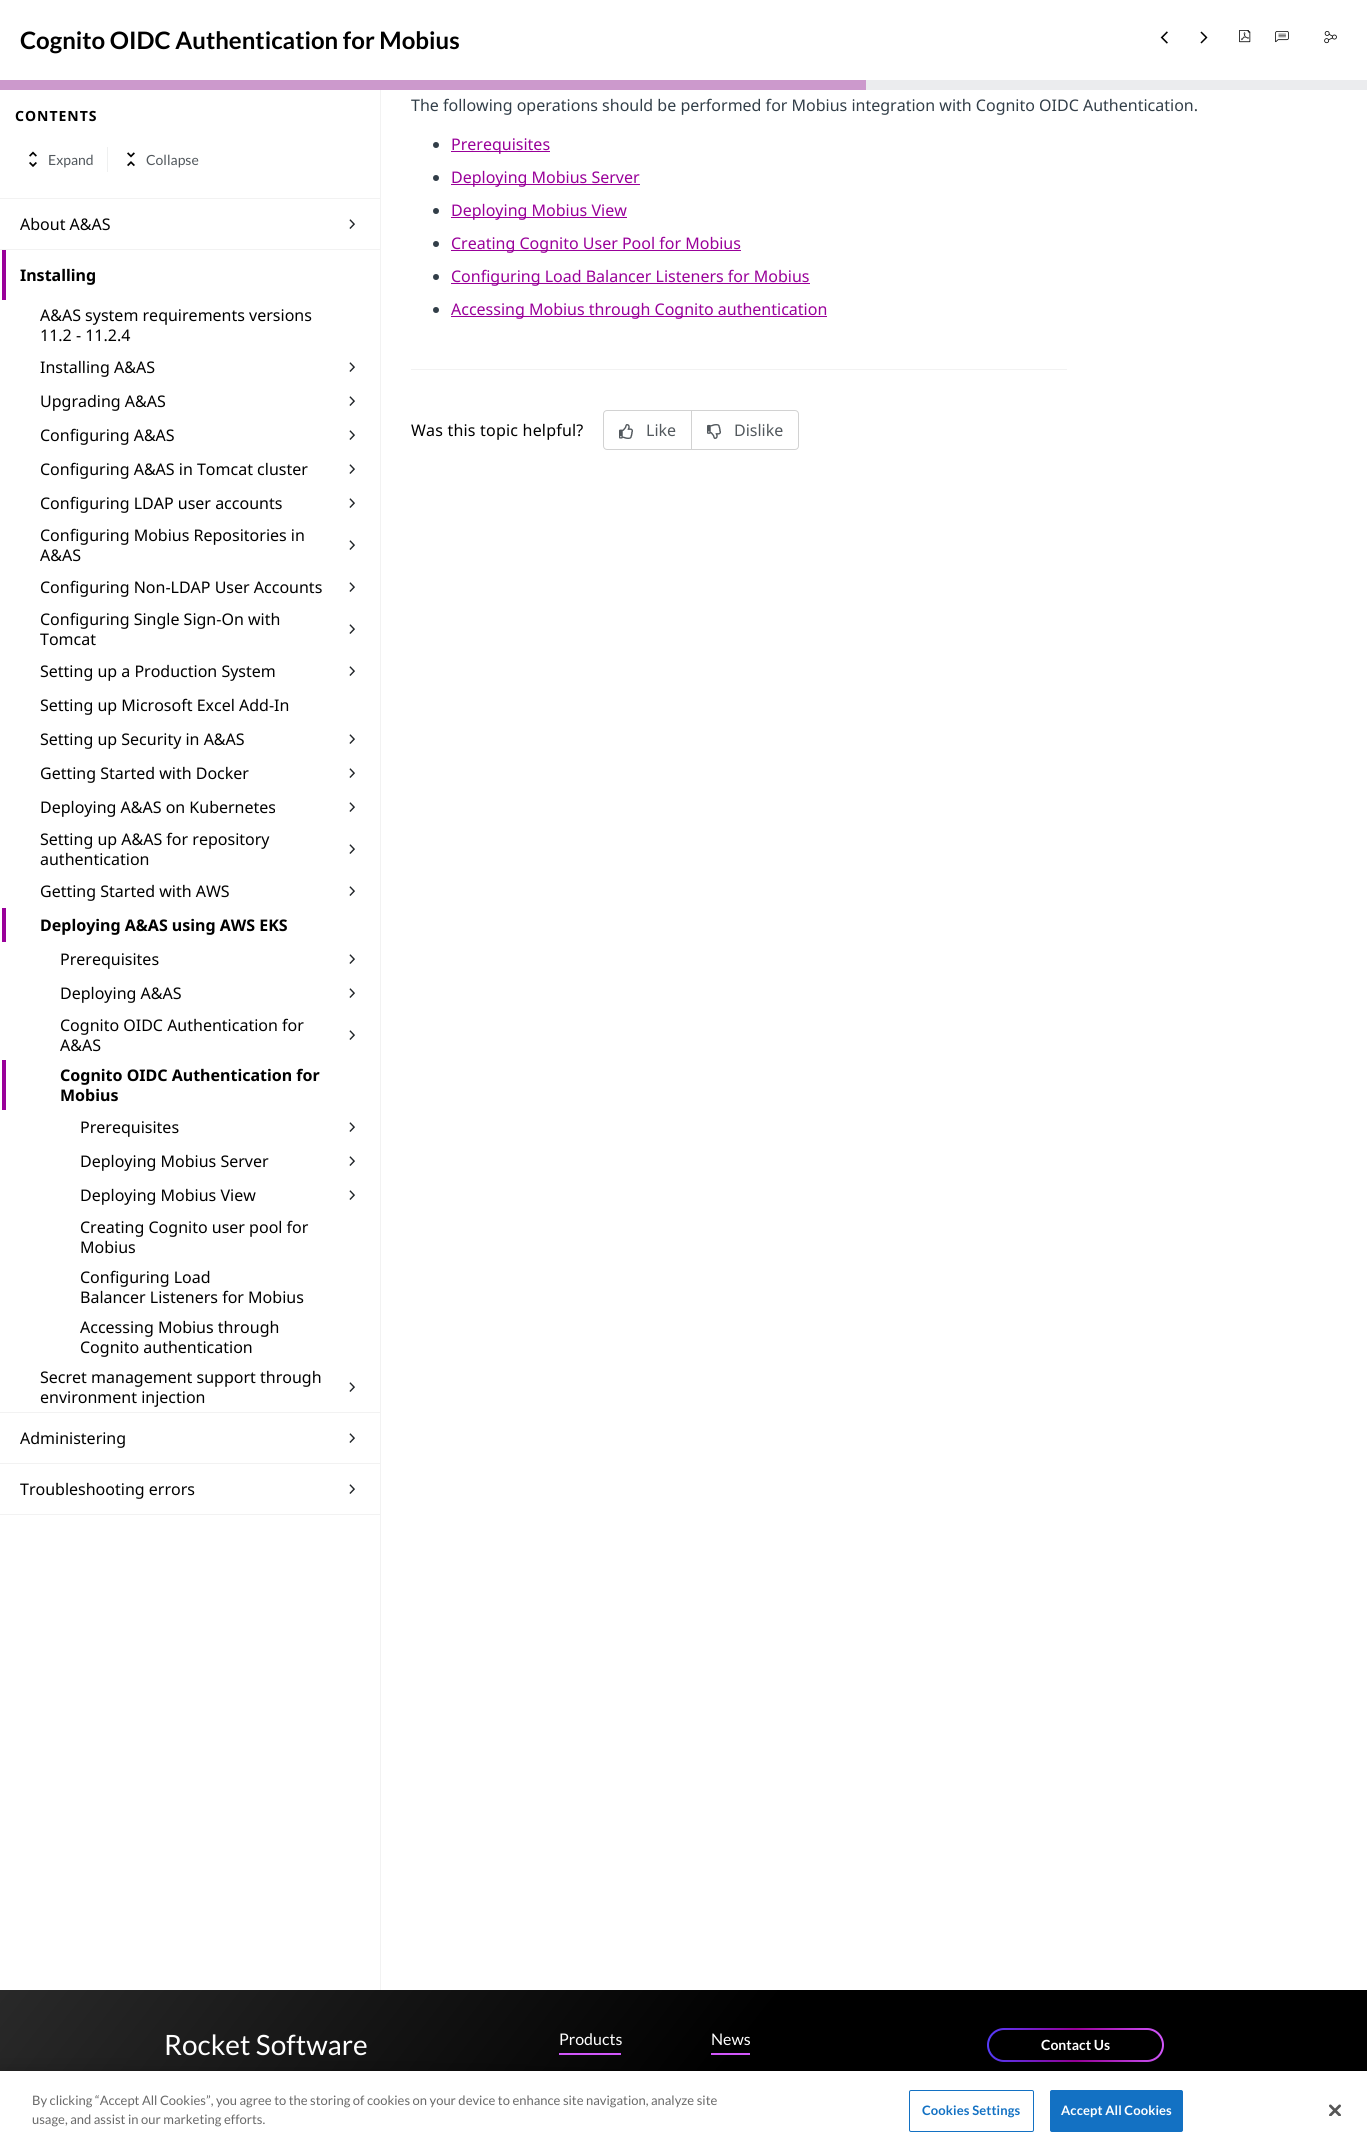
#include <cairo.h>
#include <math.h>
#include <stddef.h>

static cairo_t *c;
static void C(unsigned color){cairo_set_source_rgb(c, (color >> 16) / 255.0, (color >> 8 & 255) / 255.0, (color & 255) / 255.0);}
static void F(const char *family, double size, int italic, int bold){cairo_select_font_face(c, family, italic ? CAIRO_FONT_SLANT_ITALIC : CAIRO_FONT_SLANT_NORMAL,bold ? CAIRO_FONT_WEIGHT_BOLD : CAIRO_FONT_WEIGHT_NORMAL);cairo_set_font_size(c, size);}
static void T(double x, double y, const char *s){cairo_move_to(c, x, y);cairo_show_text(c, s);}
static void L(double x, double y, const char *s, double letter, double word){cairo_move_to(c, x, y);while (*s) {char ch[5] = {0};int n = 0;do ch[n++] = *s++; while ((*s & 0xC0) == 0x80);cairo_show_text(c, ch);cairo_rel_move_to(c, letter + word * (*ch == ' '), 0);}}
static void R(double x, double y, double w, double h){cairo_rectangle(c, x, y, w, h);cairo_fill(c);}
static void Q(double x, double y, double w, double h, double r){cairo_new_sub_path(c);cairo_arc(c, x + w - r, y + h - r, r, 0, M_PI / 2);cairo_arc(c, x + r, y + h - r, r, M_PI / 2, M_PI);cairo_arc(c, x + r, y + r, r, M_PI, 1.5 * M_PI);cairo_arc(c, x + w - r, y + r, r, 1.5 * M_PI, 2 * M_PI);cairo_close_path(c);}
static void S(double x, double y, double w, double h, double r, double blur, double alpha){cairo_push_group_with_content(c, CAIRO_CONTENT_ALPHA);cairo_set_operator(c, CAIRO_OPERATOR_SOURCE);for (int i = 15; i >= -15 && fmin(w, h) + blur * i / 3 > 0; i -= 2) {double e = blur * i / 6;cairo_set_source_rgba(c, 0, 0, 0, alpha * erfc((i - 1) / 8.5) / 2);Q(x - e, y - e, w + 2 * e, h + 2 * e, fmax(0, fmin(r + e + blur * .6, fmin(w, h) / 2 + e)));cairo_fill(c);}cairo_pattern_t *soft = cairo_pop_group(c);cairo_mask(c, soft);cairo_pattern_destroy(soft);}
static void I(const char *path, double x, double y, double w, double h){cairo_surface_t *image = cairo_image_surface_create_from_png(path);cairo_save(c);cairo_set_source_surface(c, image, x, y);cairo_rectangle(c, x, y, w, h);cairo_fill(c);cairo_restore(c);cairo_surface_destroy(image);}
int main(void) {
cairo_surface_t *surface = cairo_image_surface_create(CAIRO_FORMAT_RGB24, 1367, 2153);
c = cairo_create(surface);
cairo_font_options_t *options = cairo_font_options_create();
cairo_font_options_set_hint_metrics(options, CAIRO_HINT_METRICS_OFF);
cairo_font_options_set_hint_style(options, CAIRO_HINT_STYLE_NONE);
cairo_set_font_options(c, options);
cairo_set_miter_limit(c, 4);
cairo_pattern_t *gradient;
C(0xffffff);
cairo_paint(c);
F("Lato",24,0,1);
C(0x000000);
T(20,49,"Cognito OIDC Authentication for Mobius");
I("1.png",1160,31,8,13);
I("2.png",1200,31,8,13);
I("3.png",1239,30,12,13);
I("4.png",1275,31,14,12);
I("5.png",1324,31,13,13);
C(0xcc99cc);
R(0,80,866,10);
C(0xebecee);
R(866,80,501,10);
C(0xf2f2f2);
R(380,90,1,1900);
R(0,198,380,1);
F("Noto Sans",14,0,1);
C(0x000000);
L(15,121,"CONTENTS",1,0);
I("6.png",29,151,8,16);
F("Lato",14,0,0);
C(0x52585d);
T(48,165,"Expand");
C(0xeff0f0);
R(107,147,1,25);
I("7.png",127,152,8,15);
C(0x52585d);
T(146,165,"Collapse");
C(0xf2f2f2);
R(0,249,380,1);
F("Noto Sans",16,0,0);
C(0x000000);
T(20,230,"About A&AS");
I("8.png",349,219,6,10);
C(0xf2f2f2);
R(0,1412,380,1);
C(0x990099);
R(2,250,4,50);
F("Noto Sans",16,0,1);
C(0x000000);
T(20,281,"Installing");
F("Noto Sans",16,0,0);
T(40,321,"A&AS system requirements versions");
T(40,341,"11.2 - 11.2.4");
T(40,373,"Installing A&AS");
I("8.png",349,362,6,10);
T(40,407,"Upgrading A&AS");
I("8.png",349,396,6,10);
T(40,441,"Configuring A&AS");
I("8.png",349,430,6,10);
T(40,475,"Configuring A&AS in Tomcat cluster");
I("8.png",349,464,6,10);
T(40,509,"Configuring LDAP user accounts");
I("8.png",349,498,6,10);
T(40,541,"Configuring Mobius Repositories in");
T(40,561,"A&AS");
I("8.png",349,540,6,10);
T(40,593,"Configuring Non-LDAP User Accounts");
I("8.png",349,582,6,10);
T(40,625,"Configuring Single Sign-On with");
T(40,645,"Tomcat");
I("8.png",349,624,6,10);
T(40,677,"Setting up a Production System");
I("8.png",349,666,6,10);
T(40,711,"Setting up Microsoft Excel Add-In");
T(40,745,"Setting up Security in A&AS");
I("8.png",349,734,6,10);
T(40,779,"Getting Started with Docker");
I("8.png",349,768,6,10);
T(40,813,"Deploying A&AS on Kubernetes");
I("8.png",349,802,6,10);
T(40,845,"Setting up A&AS for repository");
T(40,865,"authentication");
I("8.png",349,844,6,10);
T(40,897,"Getting Started with AWS");
I("8.png",349,886,6,10);
C(0x990099);
R(2,908,4,34);
F("Noto Sans",16,0,1);
C(0x000000);
T(40,931,"Deploying A&AS using AWS EKS");
F("Noto Sans",16,0,0);
T(60,965,"Prerequisites");
I("8.png",349,954,6,10);
T(60,999,"Deploying A&AS");
I("8.png",349,988,6,10);
T(60,1031,"Cognito OIDC Authentication for");
T(60,1051,"A&AS");
I("8.png",349,1030,6,10);
C(0x990099);
R(2,1060,4,50);
F("Noto Sans",16,0,1);
C(0x000000);
T(60,1081,"Cognito OIDC Authentication for");
T(60,1101,"Mobius");
F("Noto Sans",16,0,0);
T(80,1133,"Prerequisites");
I("8.png",349,1122,6,10);
T(80,1167,"Deploying Mobius Server");
I("8.png",349,1156,6,10);
T(80,1201,"Deploying Mobius View");
I("8.png",349,1190,6,10);
T(80,1233,"Creating Cognito user pool for");
T(80,1253,"Mobius");
T(80,1283,"Configuring Load");
T(80,1303,"Balancer Listeners for Mobius");
T(80,1333,"Accessing Mobius through");
T(80,1353,"Cognito authentication");
T(40,1383,"Secret management support through");
T(40,1403,"environment injection");
I("8.png",349,1382,6,10);
C(0xf2f2f2);
R(0,1463,380,1);
C(0x000000);
T(20,1444,"Administering");
I("8.png",349,1433,6,10);
C(0xf2f2f2);
R(0,1514,380,1);
C(0x000000);
T(20,1495,"Troubleshooting errors");
I("8.png",349,1484,6,10);
C(0x323e48);
T(411,111,"The following operations should be performed for Mobius integration with Cognito OIDC Authentication.");
cairo_new_path(c);
cairo_arc(c,436,145,3,0,2 * M_PI);
cairo_fill(c);
C(0x990099);
R(451,151,99,1);
T(451,150,"Prerequisites");
C(0x323e48);
cairo_new_path(c);
cairo_arc(c,436,178,3,0,2 * M_PI);
cairo_fill(c);
C(0x990099);
R(451,184,189,1);
T(451,183,"Deploying Mobius Server");
C(0x323e48);
cairo_new_path(c);
cairo_arc(c,436,211,3,0,2 * M_PI);
cairo_fill(c);
C(0x990099);
R(451,217,176,1);
T(451,216,"Deploying Mobius View");
C(0x323e48);
cairo_new_path(c);
cairo_arc(c,436,244,3,0,2 * M_PI);
cairo_fill(c);
C(0x990099);
R(451,250,290,1);
T(451,249,"Creating Cognito User Pool for Mobius");
C(0x323e48);
cairo_new_path(c);
cairo_arc(c,436,277,3,0,2 * M_PI);
cairo_fill(c);
C(0x990099);
R(451,283,359,1);
T(451,282,"Configuring Load Balancer Listeners for Mobius");
C(0x323e48);
cairo_new_path(c);
cairo_arc(c,436,310,3,0,2 * M_PI);
cairo_fill(c);
C(0x990099);
R(451,316,376,1);
T(451,315,"Accessing Mobius through Cognito authentication");
C(0xf2f2f2);
R(411,369,656,1);
C(0x000000);
L(411,436,"Was this topic helpful?",.2,0);
Q(603.5,410.5,195,39,3.5);
C(0xd2d2d2);
cairo_set_line_width(c,1);
cairo_stroke(c);
R(691,411,1,38);
I("9.png",619,424,14,15);
C(0x52585d);
T(646,436,"Like");
I("10.png",707,424,14,15);
T(734,436,"Dislike");
gradient = cairo_pattern_create_linear(174,1767,1193,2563);
cairo_pattern_add_color_stop_rgba(gradient,0,0.161,0.161,0.161,1);
cairo_pattern_add_color_stop_rgba(gradient,.48,0,0,0,1);
cairo_pattern_add_color_stop_rgba(gradient,1,0,0,0,1);
cairo_set_source(c,gradient);
cairo_pattern_destroy(gradient);
R(0,1990,1367,81);
F("Lato",28,0,0);
C(0xffffff);
T(164,2055,"Rocket Software");
F("Lato",16,0,0);
T(559,2045,"Products");
C(0xd257fc);
R(559,2053,62,2);
C(0xffffff);
T(711,2045,"News");
C(0xd257fc);
R(711,2053,39,2);
gradient = cairo_pattern_create_linear(987,2045,1164,2045);
cairo_pattern_add_color_stop_rgba(gradient,0,0.329,0.235,0.984,1);
cairo_pattern_add_color_stop_rgba(gradient,.5,0.6,0,0.6,1);
cairo_pattern_add_color_stop_rgba(gradient,1,0.824,0.341,0.988,1);
cairo_set_source(c,gradient);
cairo_pattern_destroy(gradient);
Q(987,2028,177,34,17);
cairo_fill(c);
C(0x000000);
Q(989,2030,173,30,15);
cairo_fill(c);
F("Lato",14,0,1);
C(0xffffff);
T(1041,2050,"Contact Us");
C(0x000000);
S(0,2071,1367,82,0,9,.2);
C(0xffffff);
R(0,2071,1367,82);
F("Lato",13,0,0);
C(0x696969);
T(32,2105,"By clicking “Accept All Cookies”, you agree to the storing of cookies on your device to enhance site navigation, analyze site");
T(32,2124,"usage, and assist in our marketing efforts.");
Q(909.5,2090.5,124,41,1.5);
C(0x1371c3);
cairo_stroke(c);
F("Lato",13,0,1);
L(922,2115,"Cookies Settings",.1,0);
Q(1050.5,2090.5,132,41,1.5);
cairo_fill_preserve(c);
cairo_stroke(c);
C(0xffffff);
L(1061,2115,"Accept All Cookies",.1,0);
I("11.png",1329,2104,12,12);
cairo_surface_write_to_png(surface, "o.png");
cairo_font_options_destroy(options);
cairo_destroy(c);
cairo_surface_destroy(surface);
return 0;
}
